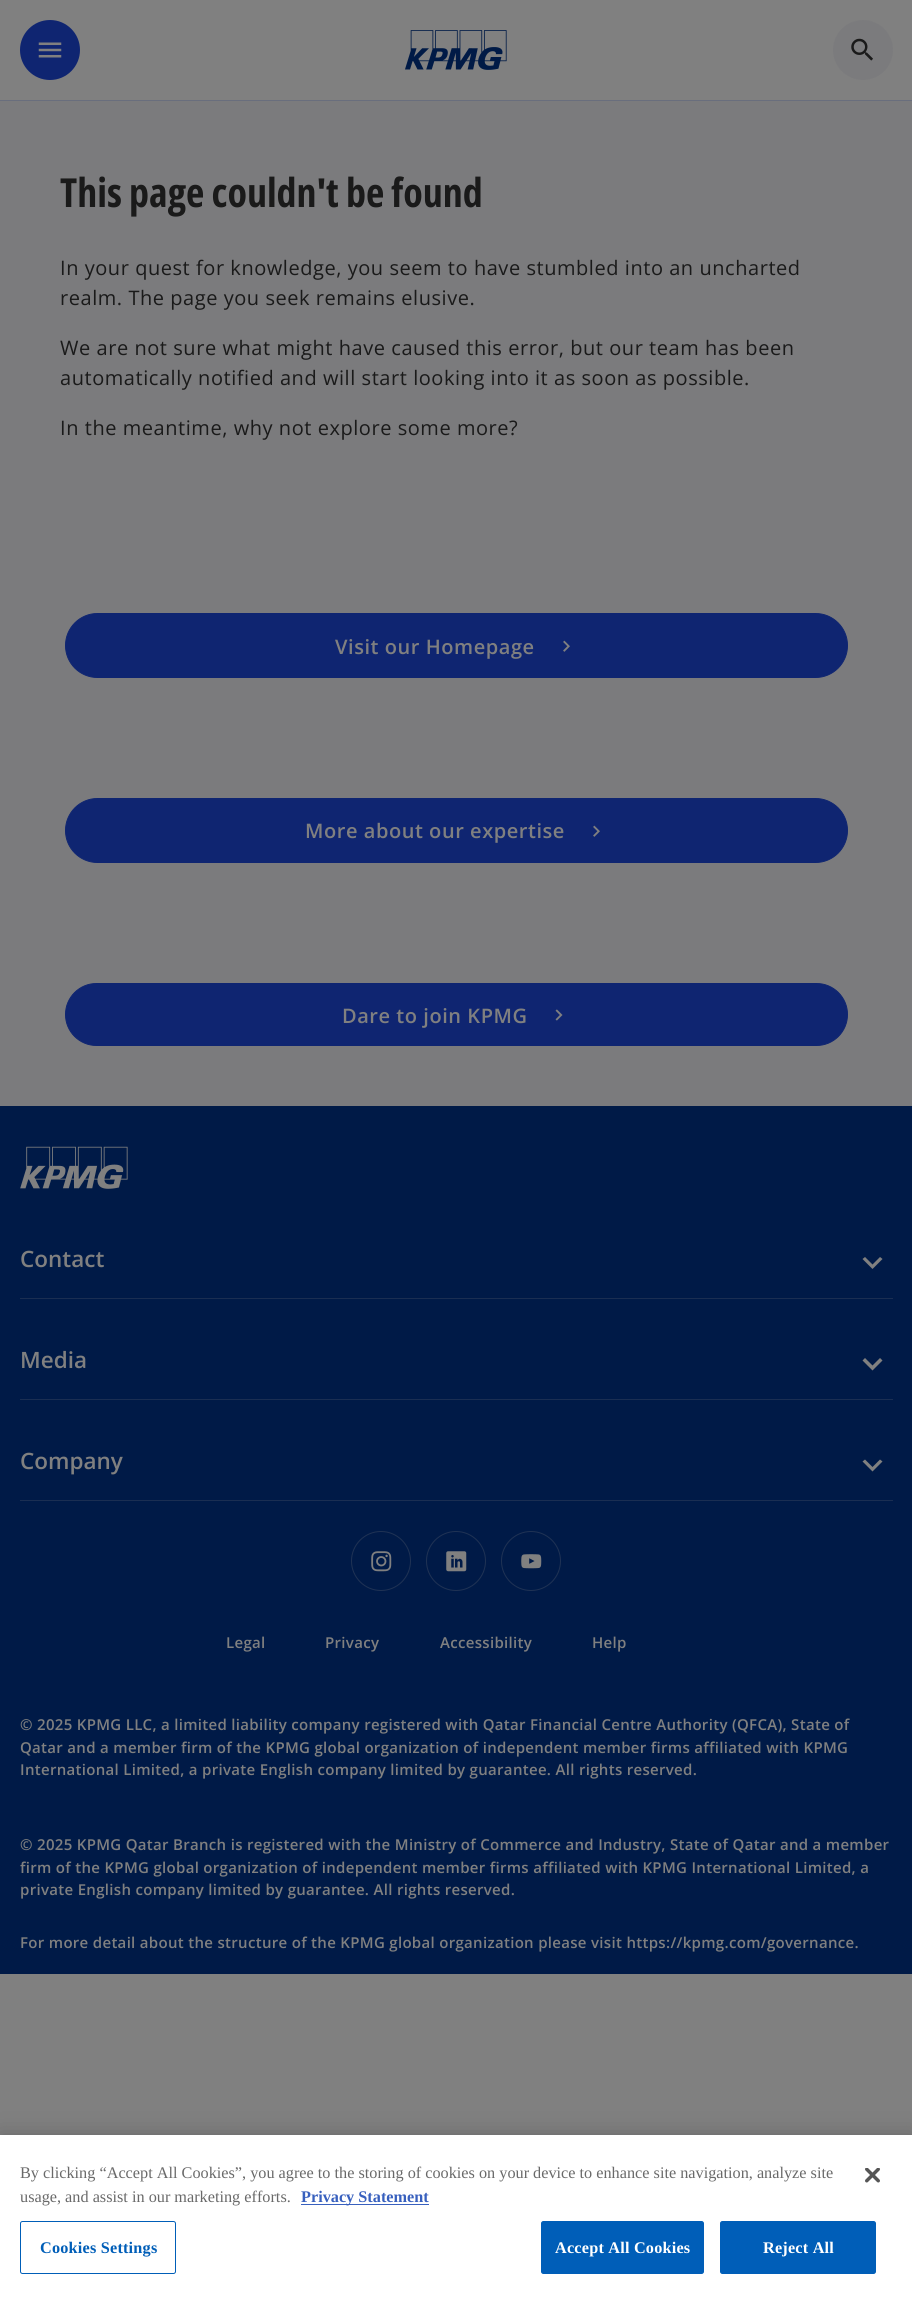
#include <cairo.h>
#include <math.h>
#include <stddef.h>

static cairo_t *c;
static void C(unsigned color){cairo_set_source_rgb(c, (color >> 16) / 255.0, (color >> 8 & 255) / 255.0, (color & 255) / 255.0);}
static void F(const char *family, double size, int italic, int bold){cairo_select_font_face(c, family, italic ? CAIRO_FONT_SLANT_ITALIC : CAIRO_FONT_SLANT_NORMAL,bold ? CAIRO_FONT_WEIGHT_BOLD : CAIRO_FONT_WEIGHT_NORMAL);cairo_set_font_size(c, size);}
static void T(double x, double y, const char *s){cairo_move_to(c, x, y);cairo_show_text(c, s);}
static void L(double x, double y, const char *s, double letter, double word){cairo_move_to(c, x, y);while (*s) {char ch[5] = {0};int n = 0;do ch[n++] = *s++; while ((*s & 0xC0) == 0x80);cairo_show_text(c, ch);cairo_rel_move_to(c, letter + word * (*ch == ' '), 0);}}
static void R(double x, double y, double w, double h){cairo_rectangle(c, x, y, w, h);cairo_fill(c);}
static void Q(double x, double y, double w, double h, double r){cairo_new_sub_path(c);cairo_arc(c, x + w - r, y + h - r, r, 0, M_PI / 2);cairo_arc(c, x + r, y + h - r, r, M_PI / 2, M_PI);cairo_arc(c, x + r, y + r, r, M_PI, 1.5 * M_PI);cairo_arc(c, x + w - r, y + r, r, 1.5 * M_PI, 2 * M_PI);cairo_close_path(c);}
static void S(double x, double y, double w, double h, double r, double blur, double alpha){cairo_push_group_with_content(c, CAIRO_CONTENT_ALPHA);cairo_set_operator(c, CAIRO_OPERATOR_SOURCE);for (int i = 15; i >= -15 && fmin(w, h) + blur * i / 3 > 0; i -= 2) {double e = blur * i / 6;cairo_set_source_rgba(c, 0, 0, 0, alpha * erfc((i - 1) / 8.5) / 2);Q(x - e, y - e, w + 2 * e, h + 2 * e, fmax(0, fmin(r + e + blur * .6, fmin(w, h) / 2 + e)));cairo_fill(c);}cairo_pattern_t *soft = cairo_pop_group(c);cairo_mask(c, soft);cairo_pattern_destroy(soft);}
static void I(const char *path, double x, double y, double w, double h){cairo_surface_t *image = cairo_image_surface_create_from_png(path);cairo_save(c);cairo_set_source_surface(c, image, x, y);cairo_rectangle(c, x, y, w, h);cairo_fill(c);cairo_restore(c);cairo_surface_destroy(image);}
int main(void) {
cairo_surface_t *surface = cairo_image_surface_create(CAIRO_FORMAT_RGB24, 912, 2298);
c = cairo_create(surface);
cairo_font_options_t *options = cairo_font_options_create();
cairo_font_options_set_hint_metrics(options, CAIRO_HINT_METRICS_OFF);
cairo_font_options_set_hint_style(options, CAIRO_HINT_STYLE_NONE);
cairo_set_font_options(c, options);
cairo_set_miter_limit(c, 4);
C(0x808080);
cairo_paint(c);
C(0x696e7d);
R(0,100,912,1);
C(0x0f2571);
cairo_arc(c,50,50,30,0,2 * M_PI);
cairo_fill(c);
I("1.png",38,42,24,16);
I("2.png",405,30,102,40);
C(0x7b7b7d);
cairo_arc(c,863,50,30,0,2 * M_PI);
cairo_fill(c);
I("3.png",851,38,22,23);
R(0,101,912,1005);
F("Open Sans Condensed",40,0,1);
C(0x1a1a1a);
T(60,207,"This page couldn't be found");
F("Open Sans",20,0,0);
L(60,275,"In your quest for knowledge, you seem to have stumbled into an uncharted",.55,0);
L(60,305,"realm. The page you seek remains elusive.",.55,0);
L(60,355,"We are not sure what might have caused this error, but our team has been",.55,0);
L(60,385,"automatically notified and will start looking into it as soon as possible.",.55,0);
L(60,435,"In the meantime, why not explore some more?",.55,0);
C(0x0f2571);
Q(65.5,613.5,782,64,32);
cairo_fill_preserve(c);
cairo_set_line_width(c,1);
cairo_stroke(c);
F("Open Sans SemiBold",20,0,0);
C(0x808080);
L(335,654,"Visit our Homepage",.55,0);
I("4.png",563,640,7,12);
C(0x0f2571);
Q(65.5,798.5,782,64,32);
cairo_fill_preserve(c);
cairo_stroke(c);
C(0x808080);
L(305,838,"More about our expertise",.55,0);
I("4.png",593,825,7,12);
C(0x0f2571);
Q(65.5,983.5,782,62,31);
cairo_fill_preserve(c);
cairo_stroke(c);
C(0x808080);
L(342,1023,"Dare to join KPMG",.55,0);
I("5.png",555,1009,8,12);
C(0x001a47);
R(0,1106,912,868);
I("6.png",20,1146,108,43);
C(0x1a2e52);
R(20,1298,873,1);
F("Open Sans SemiBold",22.5,0,0);
C(0x808080);
T(20,1267,"Contact");
cairo_new_path(c);
cairo_move_to(c,880,1257);
cairo_line_to(c,872.5,1264.5);
cairo_line_to(c,865,1257);
cairo_line_to(c,862.5,1259);
cairo_line_to(c,872.5,1269);
cairo_line_to(c,882.5,1259);
cairo_close_path(c);
cairo_fill(c);
C(0x1a2e52);
R(20,1399,873,1);
C(0x808080);
T(20,1368,"Media");
cairo_new_path(c);
cairo_move_to(c,880,1358);
cairo_line_to(c,872.5,1365.5);
cairo_line_to(c,865,1358);
cairo_line_to(c,862.5,1360.5);
cairo_line_to(c,872.5,1370.5);
cairo_line_to(c,882.5,1360.5);
cairo_close_path(c);
cairo_fill(c);
C(0x1a2e52);
R(20,1500,873,1);
C(0x808080);
T(20,1469,"Company");
cairo_new_path(c);
cairo_move_to(c,880,1459.5);
cairo_line_to(c,872.5,1467);
cairo_line_to(c,865,1459.5);
cairo_line_to(c,862.5,1461.5);
cairo_line_to(c,872.5,1471.5);
cairo_line_to(c,882.5,1461.5);
cairo_close_path(c);
cairo_fill(c);
cairo_arc(c,381,1561,29.5,0,2 * M_PI);
C(0x1f3254);
cairo_stroke(c);
I("7.png",371,1551,21,21);
cairo_arc(c,456,1561,29.5,0,2 * M_PI);
cairo_stroke(c);
I("8.png",446,1551,21,21);
cairo_arc(c,531,1561,29.5,0,2 * M_PI);
cairo_stroke(c);
I("9.png",521,1554,21,15);
F("Open Sans SemiBold",15,0,0);
C(0x808080);
L(226,1648,"Legal",.31,0);
L(325,1648,"Privacy",.31,0);
L(440,1648,"Accessibility",.31,0);
L(592,1648,"Help",.31,0);
L(20,1730,"© 2025 KPMG LLC, a limited liability company registered with Qatar Financial Centre Authority (QFCA), State of",.31,0);
L(20,1753,"Qatar and a member firm of the KPMG global organization of independent member firms affiliated with KPMG",.31,0);
L(20,1775,"International Limited, a private English company limited by guarantee. All rights reserved.",.31,0);
L(20,1850,"© 2025 KPMG Qatar Branch is registered with the Ministry of Commerce and Industry, State of Qatar and a member",.31,0);
L(20,1873,"firm of the KPMG global organization of independent member firms affiliated with KPMG International Limited, a",.31,0);
L(20,1895,"private English company limited by guarantee. All rights reserved.",.31,0);
L(20,1948,"For more detail about the structure of the KPMG global organization please visit https://kpmg.com/governance.",.31,0);
C(0x000000);
S(0,2135,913,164,0,11,.2);
C(0xffffff);
R(0,2135,912,163);
F("Liberation Serif",16.25,0,0);
C(0x696969);
T(20,2178,"By clicking “Accept All Cookies”, you agree to the storing of cookies on your device to enhance site navigation, analyze site");
T(20,2202,"usage, and assist in our marketing efforts.");
C(0x3860be);
R(301,2204,128,1);
F("Liberation Serif",16.25,0,1);
T(301,2202,"Privacy Statement");
Q(20.5,2221.5,155,52,2);
C(0x005eb8);
cairo_stroke(c);
L(40,2253,"Cookies Settings",.2,0);
Q(541.5,2221.5,162,52,2);
cairo_fill_preserve(c);
cairo_stroke(c);
C(0xffffff);
L(555,2253,"Accept All Cookies",.2,0);
C(0x005eb8);
Q(720.5,2221.5,155,52,2);
cairo_fill_preserve(c);
cairo_stroke(c);
C(0xffffff);
L(763,2253,"Reject All",.2,0);
I("10.png",865,2168,15,15);
cairo_surface_write_to_png(surface, "o.png");
cairo_font_options_destroy(options);
cairo_destroy(c);
cairo_surface_destroy(surface);
return 0;
}
